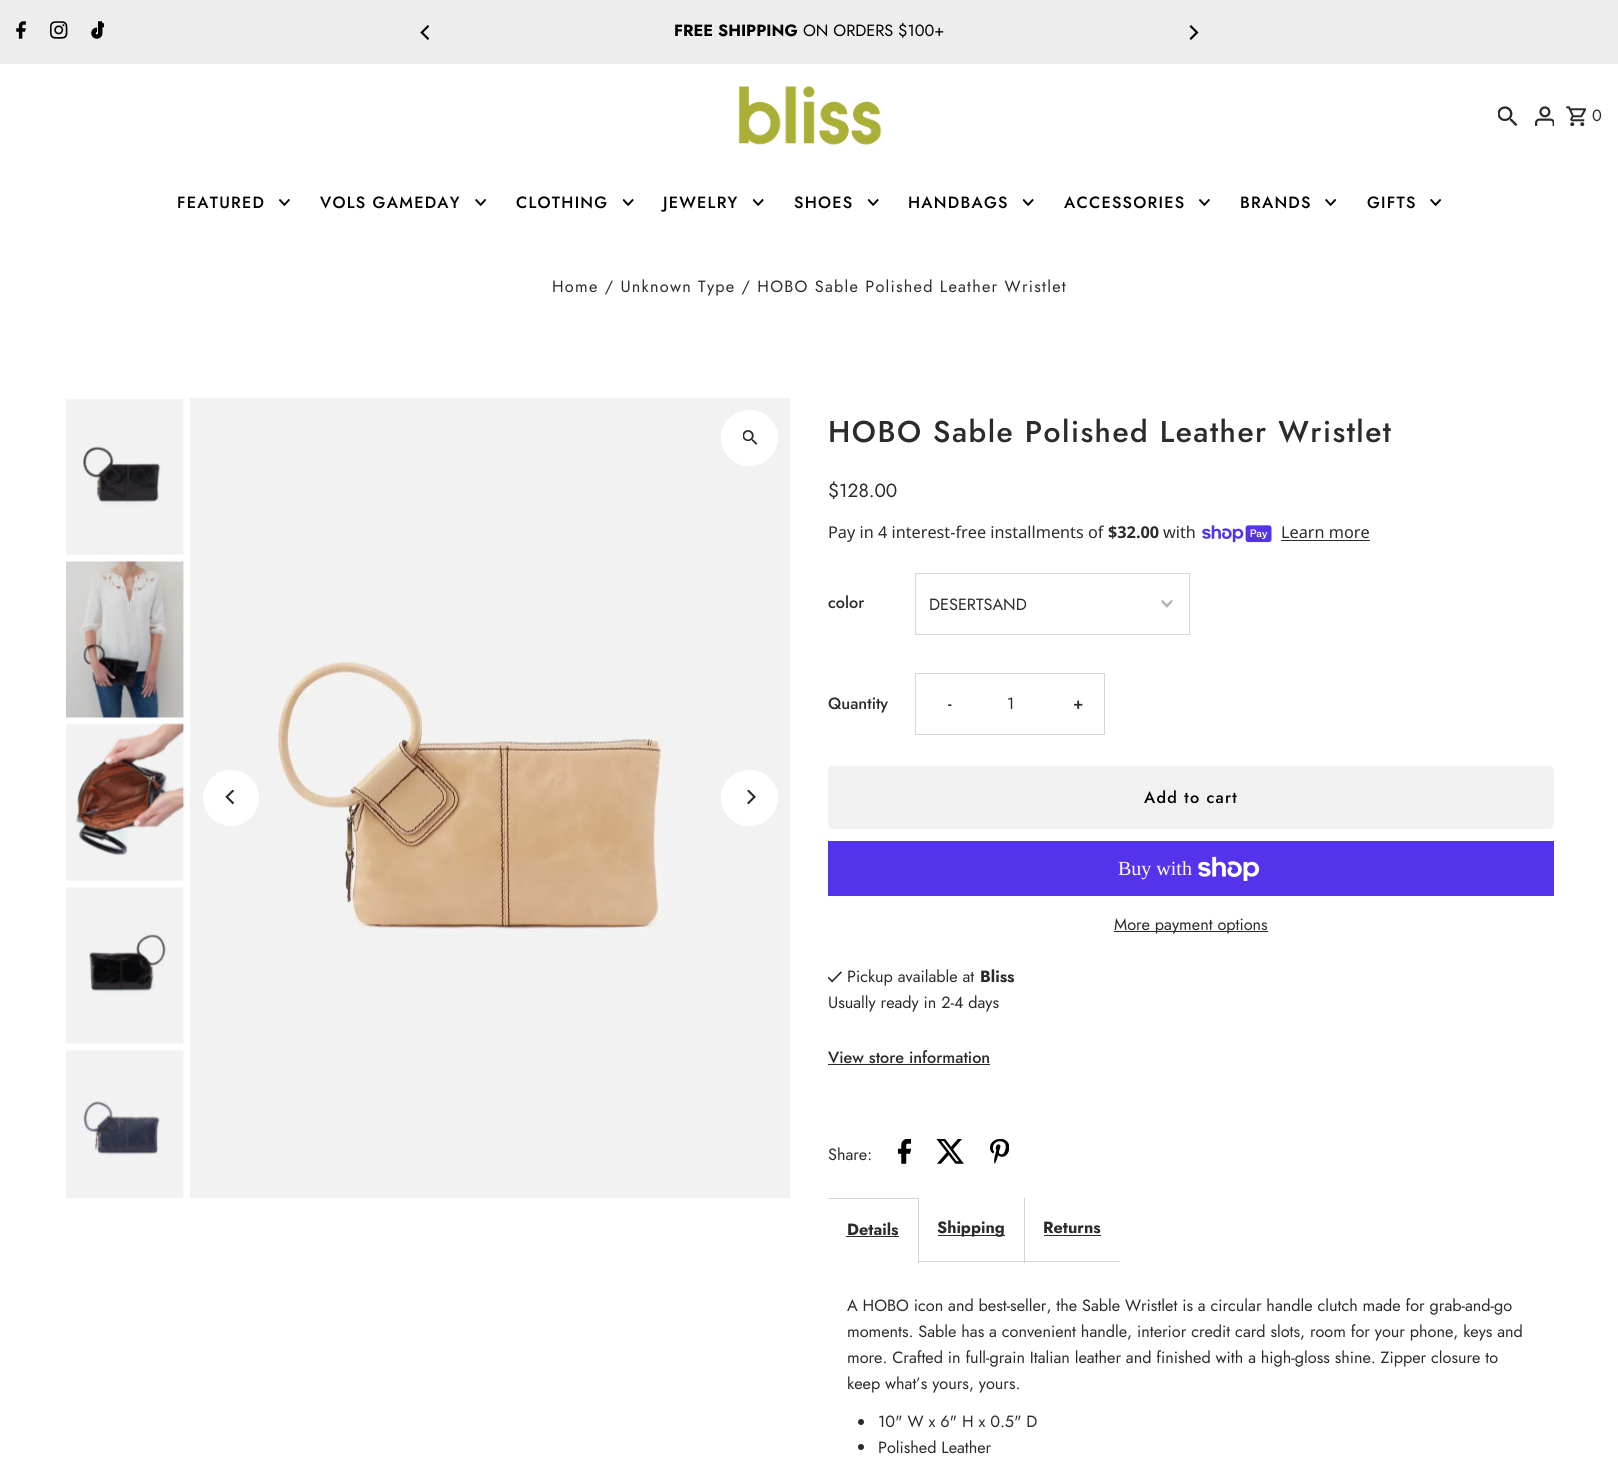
#include <cairo.h>
#include <math.h>
#include <stddef.h>

static cairo_t *c;
static void C(unsigned color){cairo_set_source_rgb(c, (color >> 16) / 255.0, (color >> 8 & 255) / 255.0, (color & 255) / 255.0);}
static void F(const char *family, double size, int italic, int bold){cairo_select_font_face(c, family, italic ? CAIRO_FONT_SLANT_ITALIC : CAIRO_FONT_SLANT_NORMAL,bold ? CAIRO_FONT_WEIGHT_BOLD : CAIRO_FONT_WEIGHT_NORMAL);cairo_set_font_size(c, size);}
static void T(double x, double y, const char *s){cairo_move_to(c, x, y);cairo_show_text(c, s);}
static void L(double x, double y, const char *s, double letter, double word){cairo_move_to(c, x, y);while (*s) {char ch[5] = {0};int n = 0;do ch[n++] = *s++; while ((*s & 0xC0) == 0x80);cairo_show_text(c, ch);cairo_rel_move_to(c, letter + word * (*ch == ' '), 0);}}
static void R(double x, double y, double w, double h){cairo_rectangle(c, x, y, w, h);cairo_fill(c);}
static void Q(double x, double y, double w, double h, double r){cairo_new_sub_path(c);cairo_arc(c, x + w - r, y + h - r, r, 0, M_PI / 2);cairo_arc(c, x + r, y + h - r, r, M_PI / 2, M_PI);cairo_arc(c, x + r, y + r, r, M_PI, 1.5 * M_PI);cairo_arc(c, x + w - r, y + r, r, 1.5 * M_PI, 2 * M_PI);cairo_close_path(c);}
static void I(const char *path, double x, double y, double w, double h){cairo_surface_t *image = cairo_image_surface_create_from_png(path);cairo_save(c);cairo_set_source_surface(c, image, x, y);cairo_rectangle(c, x, y, w, h);cairo_fill(c);cairo_restore(c);cairo_surface_destroy(image);}
int main(void) {
cairo_surface_t *surface = cairo_image_surface_create(CAIRO_FORMAT_RGB24, 1618, 1464);
c = cairo_create(surface);
cairo_font_options_t *options = cairo_font_options_create();
cairo_font_options_set_hint_metrics(options, CAIRO_HINT_METRICS_OFF);
cairo_font_options_set_hint_style(options, CAIRO_HINT_STYLE_NONE);
cairo_set_font_options(c, options);
cairo_set_miter_limit(c, 4);
C(0xffffff);
cairo_paint(c);
C(0xededed);
R(0,0,1618,64);
I("1.png",16,21,10,18);
I("2.png",50,21,18,18);
I("3.png",91,21,13,18);
I("4.png",420,25,10,15);
F("Jost",16.25,0,1);
C(0x000000);
T(674,36,"FREE SHIPPING");
F("Jost",16.25,0,0);
T(803,36,"ON ORDERS $100+");
I("5.png",1189,25,10,15);
I("6.png",738,86,144,59);
I("7.png",1498,106,20,20);
I("8.png",1535,106,19,20);
I("9.png",1566,106,20,20);
C(0x2b2b2b);
L(1592,121,"0",1.25,0);
F("Jost Medium",16.25,0,0);
C(0x000000);
L(177,208,"FEATURED",1.25,0);
I("10.png",279,199,11,7);
L(320,208,"VOLS GAMEDAY",1.25,0);
I("11.png",475,199,11,7);
L(516,208,"CLOTHING",1.25,0);
I("12.png",623,199,11,7);
L(663,208,"JEWELRY",1.25,0);
I("12.png",753,199,11,7);
L(794,208,"SHOES",1.25,0);
I("12.png",868,199,11,7);
L(908,208,"HANDBAGS",1.25,0);
I("12.png",1023,199,11,7);
L(1064,208,"ACCESSORIES",1.25,0);
I("10.png",1199,199,11,7);
L(1240,208,"BRANDS",1.25,0);
I("11.png",1325,199,11,7);
L(1367,208,"GIFTS",1.25,0);
I("11.png",1430,199,11,7);
F("Jost",16.25,0,0);
C(0x2b2b2b);
L(552,292,"Home / Unknown Type / HOBO Sable Polished Leather Wristlet",1.25,0);
I("13.png",66,399,118,156);
I("14.png",66,560,119,158);
I("15.png",66,723,119,158);
I("16.png",66,887,118,157);
I("17.png",66,1050,118,148);
I("18.png",190,398,600,800);
C(0xffffff);
Q(721,410,57,56,28);
cairo_fill(c);
I("19.png",743,430,15,15);
cairo_arc(c,231,798,28,0,2 * M_PI);
cairo_fill(c);
I("20.png",225,790,10,15);
Q(721,770,57,56,28);
cairo_fill(c);
I("21.png",747,790,9,15);
F("Jost Medium",30,0,0);
C(0x2b2b2b);
L(828,442,"HOBO Sable Polished Leather Wristlet",1.5,0);
F("Jost",19,0,0);
T(828,497,"$128.00");
F("Noto Sans",16.25,0,0);
T(828,538,"Pay in 4 interest-free installments of");
F("Noto Sans",16.25,0,1);
T(1108,538,"$32.00");
F("Noto Sans",16.25,0,0);
T(1163,538,"with");
I("22.png",1202,525,70,18);
T(1281,538,"Learn more");
R(1281,540,89,1);
F("Jost Medium",16.25,0,0);
T(828,608,"color");
I("23.png",1161,600,12,8);
cairo_rectangle(c,915.5,573.5,274,61);
C(0xd5d5d5);
cairo_set_line_width(c,1);
cairo_stroke(c);
F("Jost",16.25,0,0);
C(0x2b2b2b);
T(929,610,"DESERTSAND");
F("Jost Medium",16.25,0,0);
T(828,709,"Quantity");
cairo_rectangle(c,915.5,673.5,189,61);
C(0xd5d5d5);
cairo_stroke(c);
C(0x2b2b2b);
L(948,709,"-",1.25,0);
F("Jost",16.25,0,0);
T(1007,709,"1");
F("Jost Medium",16.25,0,0);
L(1073,709,"+",1.25,0);
C(0xf1f1f1);
Q(829.5,767.5,723,60,3.5);
cairo_fill_preserve(c);
cairo_set_line_width(c,3);
cairo_stroke(c);
C(0x000000);
L(1144,803,"Add to cart",1.25,0);
C(0x5433eb);
R(828,841,726,55);
F("Liberation Serif",20,0,0);
C(0xffffff);
T(1118,875,"Buy with");
I("24.png",1198,856,62,25);
C(0x2b2b2b);
R(1114,931,154,1);
F("Jost",16.25,0,0);
T(1114,930,"More payment options");
I("25.png",828,971,14,12);
T(847,982,"Pickup available at");
F("Jost",16.25,0,1);
T(980,982,"Bliss");
F("Jost",16.25,0,0);
T(828,1008,"Usually ready in 2-4 days");
F("Jost Medium",16.25,0,0);
T(828,1063,"View store information");
R(828,1064,162,1);
F("Jost",16.25,0,0);
T(828,1160,"Share:");
I("26.png",898,1139,13,25);
I("27.png",936,1139,28,25);
I("28.png",990,1139,19,25);
C(0xd5d5d5);
R(918,1198,1,65);
R(828,1198,90,1);
F("Jost",16.25,0,1);
C(0x2b2b2b);
T(847,1235,"Details");
R(846,1236,53,1);
C(0xd5d5d5);
R(1024,1198,1,65);
R(919,1261,105,1);
C(0x2b2b2b);
R(938,1235,67,1);
T(937,1233,"Shipping");
C(0xd5d5d5);
R(1025,1261,95,1);
C(0x2b2b2b);
T(1043,1233,"Returns");
R(1044,1235,57,1);
F("Jost",16.25,0,0);
T(847,1311,"A HOBO icon and best-seller, the Sable Wristlet is a circular handle clutch made for grab-and-go");
T(847,1337,"moments. Sable has a convenient handle, interior credit card slots, room for your phone, keys and");
T(847,1363,"more. Crafted in full-grain Italian leather and finished with a high-gloss shine. Zipper closure to");
T(847,1389,"keep what’s yours, yours.");
cairo_new_path(c);
cairo_arc(c,861,1422,3,0,2 * M_PI);
cairo_fill(c);
T(878,1427,"10\" W x 6\" H x 0.5\" D");
cairo_new_path(c);
cairo_arc(c,861,1447,3,0,2 * M_PI);
cairo_fill(c);
T(878,1453,"Polished Leather");
cairo_surface_write_to_png(surface, "o.png");
cairo_font_options_destroy(options);
cairo_destroy(c);
cairo_surface_destroy(surface);
return 0;
}
